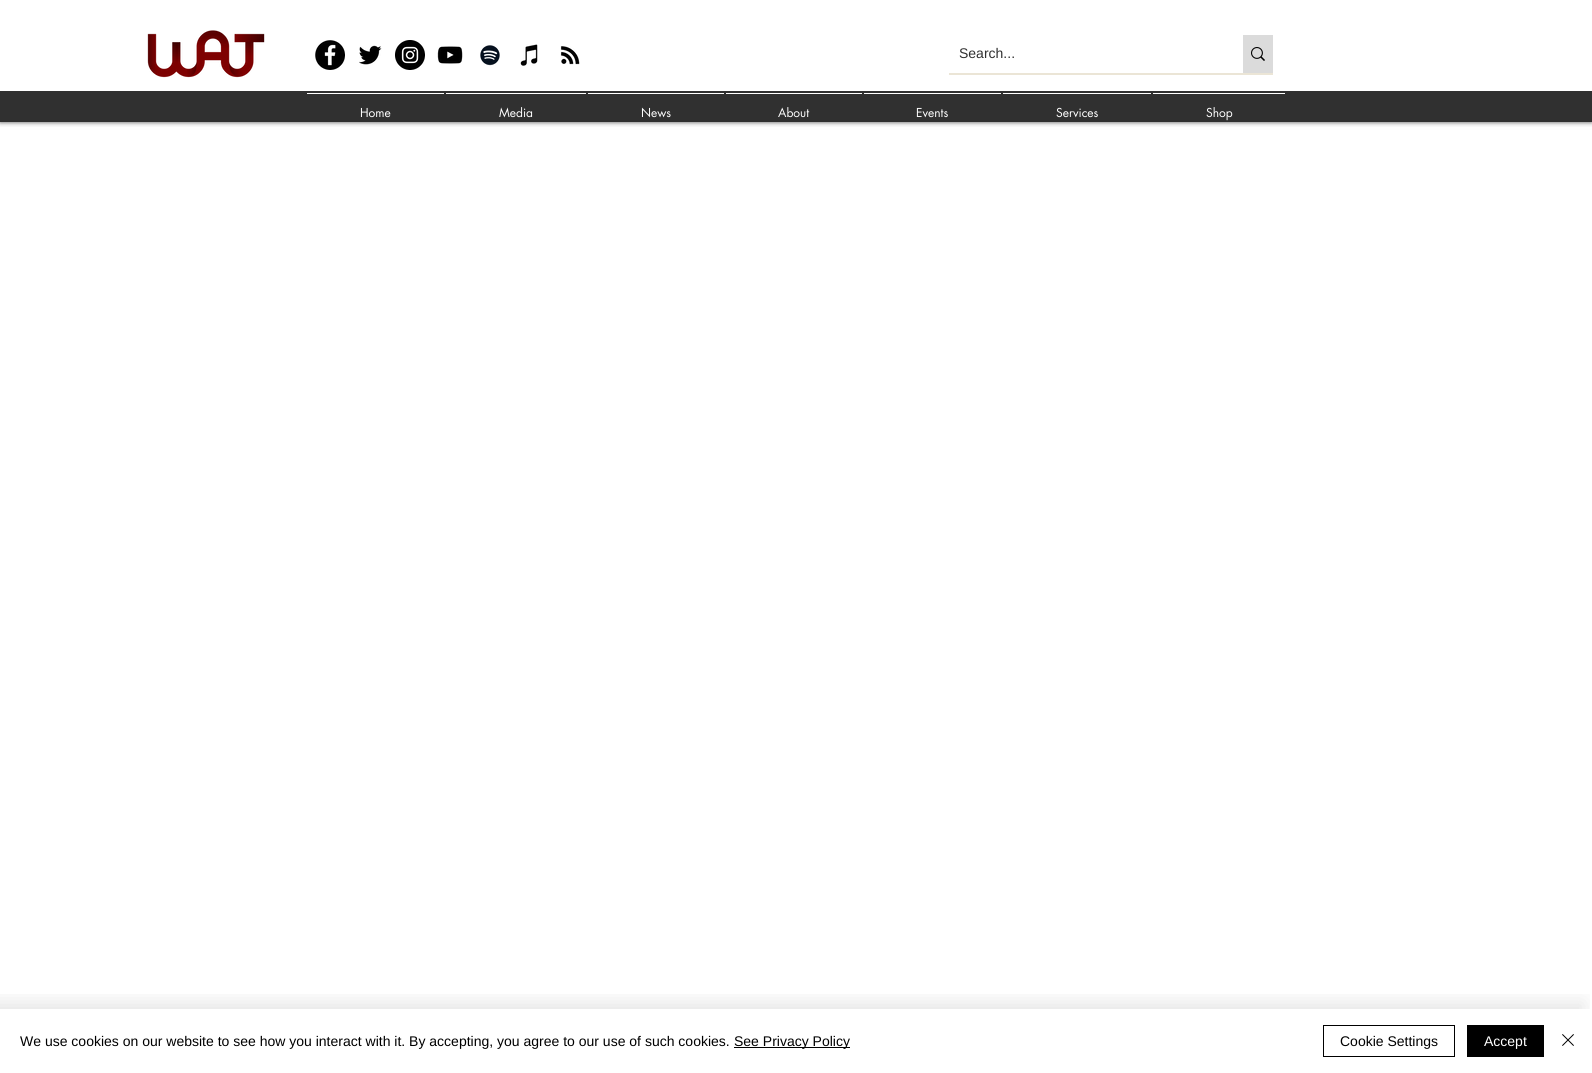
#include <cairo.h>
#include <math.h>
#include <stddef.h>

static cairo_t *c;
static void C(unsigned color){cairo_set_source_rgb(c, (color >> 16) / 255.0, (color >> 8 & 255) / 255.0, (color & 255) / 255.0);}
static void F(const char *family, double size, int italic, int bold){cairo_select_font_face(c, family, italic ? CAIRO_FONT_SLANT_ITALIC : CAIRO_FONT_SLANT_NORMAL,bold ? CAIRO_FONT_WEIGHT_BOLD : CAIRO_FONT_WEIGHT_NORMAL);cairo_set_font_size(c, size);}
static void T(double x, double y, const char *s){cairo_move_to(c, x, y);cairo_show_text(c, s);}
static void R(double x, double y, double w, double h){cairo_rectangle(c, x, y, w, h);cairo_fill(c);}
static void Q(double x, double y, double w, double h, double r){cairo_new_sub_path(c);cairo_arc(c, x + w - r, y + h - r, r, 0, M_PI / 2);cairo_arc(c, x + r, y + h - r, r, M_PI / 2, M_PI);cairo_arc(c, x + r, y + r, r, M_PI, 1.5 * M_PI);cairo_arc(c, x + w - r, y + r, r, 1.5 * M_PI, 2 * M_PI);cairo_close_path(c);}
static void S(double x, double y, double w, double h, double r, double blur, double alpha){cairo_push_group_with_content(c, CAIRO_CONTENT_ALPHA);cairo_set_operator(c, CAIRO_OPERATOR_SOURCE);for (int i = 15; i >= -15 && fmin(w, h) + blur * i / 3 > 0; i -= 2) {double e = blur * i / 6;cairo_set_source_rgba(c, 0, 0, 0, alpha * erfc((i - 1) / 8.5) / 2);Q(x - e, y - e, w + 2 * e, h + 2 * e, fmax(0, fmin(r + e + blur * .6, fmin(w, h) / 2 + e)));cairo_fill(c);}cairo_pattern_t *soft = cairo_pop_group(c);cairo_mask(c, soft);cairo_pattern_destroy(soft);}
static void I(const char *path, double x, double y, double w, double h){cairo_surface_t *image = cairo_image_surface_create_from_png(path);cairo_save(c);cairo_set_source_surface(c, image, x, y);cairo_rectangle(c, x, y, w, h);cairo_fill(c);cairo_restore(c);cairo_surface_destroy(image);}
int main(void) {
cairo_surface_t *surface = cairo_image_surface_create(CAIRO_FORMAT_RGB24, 1592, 1073);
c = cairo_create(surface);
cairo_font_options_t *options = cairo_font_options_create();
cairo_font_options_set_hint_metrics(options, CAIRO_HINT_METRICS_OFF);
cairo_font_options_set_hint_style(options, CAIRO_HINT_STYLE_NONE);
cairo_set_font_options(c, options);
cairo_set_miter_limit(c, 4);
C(0xffffff);
cairo_paint(c);
cairo_save(c);
cairo_rectangle(c,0,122,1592,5);
cairo_clip(c);
C(0x000000);
S(0,0,1592,122,0,2.5,.7);
cairo_restore(c);
I("1.png",147,30,118,48);
I("2.png",315,40,30,30);
I("3.png",359,45,23,20);
I("4.png",395,40,30,30);
I("5.png",437,46,26,18);
I("6.png",480,45,20,21);
I("7.png",520,44,18,22);
I("8.png",560,46,20,19);
C(0xebe5d6);
R(949,73,324,2);
F("Liberation Sans",14,0,0);
C(0x303030);
T(959,58,"Search...");
C(0xdbdbdb);
R(1243,35,30,38);
I("9.png",1251,47,14,14);
C(0x303030);
R(0,91,1592,31);
C(0xffffff);
R(307,93,137,1);
F("futura",12,0,0);
T(360,117,"Home");
R(446,93,140,1);
T(499,117,"Media");
R(588,93,136,1);
T(641,117,"News");
R(726,93,136,1);
T(778,117,"About");
R(864,93,137,1);
T(916,117,"Events");
R(1003,93,148,1);
T(1056,117,"Services");
R(1153,93,132,1);
T(1206,117,"Shop");
cairo_save(c);
cairo_rectangle(c,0,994,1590,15);
cairo_clip(c);
C(0x000000);
S(-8,1002,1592,64,0,10,.1);
cairo_restore(c);
F("Liberation Sans",14,0,0);
C(0x000000);
T(20,1046,"We use cookies on our website to see how you interact with it. By accepting, you agree to our use of such cookies.");
R(734,1047,116,1);
T(734,1046,"See Privacy Policy");
cairo_rectangle(c,1323.5,1025.5,131,31);
cairo_set_line_width(c,1);
cairo_stroke(c);
T(1340,1046,"Cookie Settings");
R(1467,1025,77,32);
C(0xffffff);
T(1484,1046,"Accept");
I("10.png",1562,1034,12,12);
cairo_surface_write_to_png(surface, "o.png");
cairo_font_options_destroy(options);
cairo_destroy(c);
cairo_surface_destroy(surface);
return 0;
}
